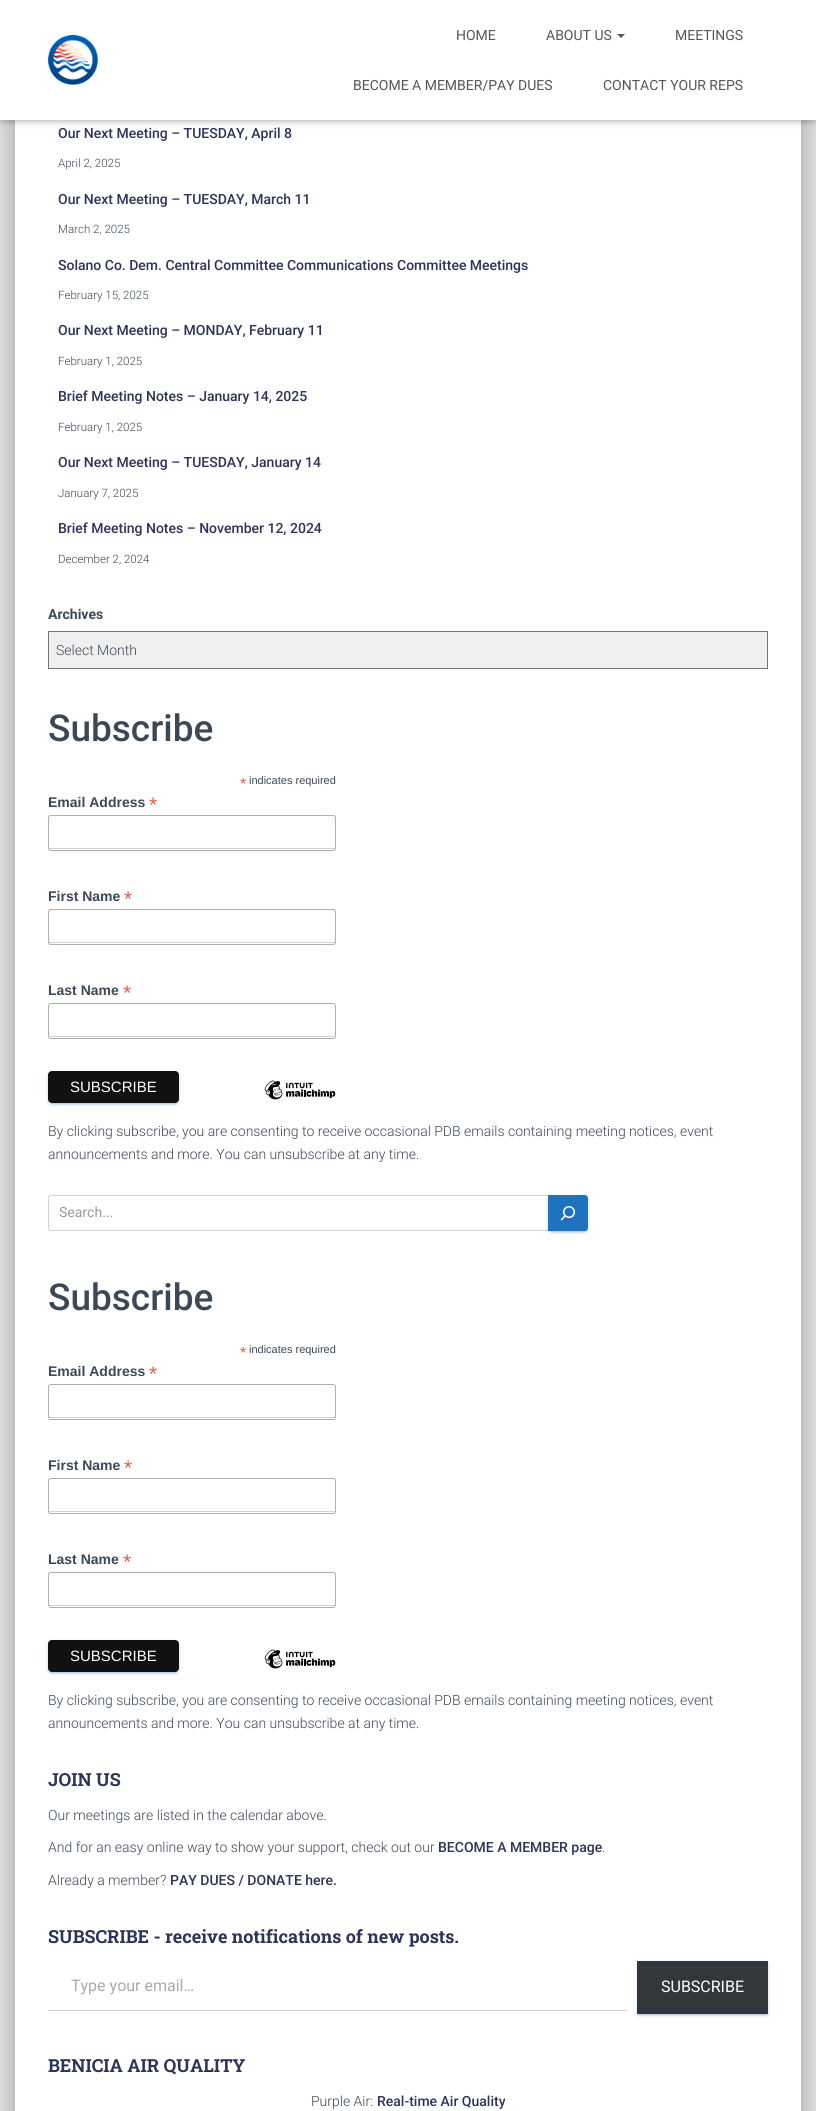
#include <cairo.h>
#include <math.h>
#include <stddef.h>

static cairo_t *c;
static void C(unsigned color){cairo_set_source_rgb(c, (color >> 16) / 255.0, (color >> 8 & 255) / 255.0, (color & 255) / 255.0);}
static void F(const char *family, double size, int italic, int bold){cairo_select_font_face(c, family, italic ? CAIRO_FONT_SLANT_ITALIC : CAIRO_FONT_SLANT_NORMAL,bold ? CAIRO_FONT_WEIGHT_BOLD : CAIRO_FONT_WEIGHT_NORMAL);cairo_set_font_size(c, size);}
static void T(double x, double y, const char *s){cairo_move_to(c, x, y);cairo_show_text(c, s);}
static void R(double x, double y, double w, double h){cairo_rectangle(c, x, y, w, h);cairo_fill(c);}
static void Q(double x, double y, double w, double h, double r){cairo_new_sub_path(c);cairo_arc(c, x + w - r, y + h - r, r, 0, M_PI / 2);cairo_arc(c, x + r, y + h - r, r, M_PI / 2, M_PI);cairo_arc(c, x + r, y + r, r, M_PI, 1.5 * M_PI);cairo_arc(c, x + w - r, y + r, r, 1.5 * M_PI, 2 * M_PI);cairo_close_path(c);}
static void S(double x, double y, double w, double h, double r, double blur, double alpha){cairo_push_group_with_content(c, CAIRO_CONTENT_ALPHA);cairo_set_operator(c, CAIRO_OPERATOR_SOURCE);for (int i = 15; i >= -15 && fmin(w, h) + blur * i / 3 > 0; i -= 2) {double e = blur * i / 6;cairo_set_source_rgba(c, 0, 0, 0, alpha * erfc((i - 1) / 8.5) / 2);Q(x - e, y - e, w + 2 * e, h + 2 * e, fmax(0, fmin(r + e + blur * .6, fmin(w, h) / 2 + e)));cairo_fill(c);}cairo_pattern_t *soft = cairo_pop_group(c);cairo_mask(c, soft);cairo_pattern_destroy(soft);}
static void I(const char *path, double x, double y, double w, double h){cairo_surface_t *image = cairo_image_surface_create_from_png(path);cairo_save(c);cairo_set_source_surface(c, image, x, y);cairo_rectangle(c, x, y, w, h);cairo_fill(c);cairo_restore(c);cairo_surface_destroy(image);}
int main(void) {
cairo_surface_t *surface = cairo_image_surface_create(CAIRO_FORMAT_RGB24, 816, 2111);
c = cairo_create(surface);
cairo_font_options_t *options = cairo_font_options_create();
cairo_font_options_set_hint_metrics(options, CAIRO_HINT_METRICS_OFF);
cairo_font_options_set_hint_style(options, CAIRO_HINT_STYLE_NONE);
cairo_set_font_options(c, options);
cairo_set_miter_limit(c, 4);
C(0xe5e5e5);
cairo_paint(c);
C(0x000000);
S(20,-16,776,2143,1,5,.2);
S(10,-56,796,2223,11,15,.12);
S(13,-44,790,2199,8,12,.14);
C(0xffffff);
R(15,120,786,1991);
C(0x000000);
S(2,6,812,116,0,2.5,.1);
S(0,1,816,120,0,5,.12);
S(6,7,804,108,0,5,.42);
C(0xffffff);
R(0,0,816,120);
I("1.png",48,35,50,50);
F("Roboto",14,0,0);
C(0x555555);
T(456,40,"HOME");
T(546,40,"ABOUT US");
cairo_new_path(c);
cairo_move_to(c,617,34);
cairo_line_to(c,625,34);
cairo_line_to(c,621,38);
cairo_close_path(c);
cairo_fill(c);
T(675,40,"MEETINGS");
T(353,90,"BECOME A MEMBER/PAY DUES");
T(603,90,"CONTACT YOUR REPS");
F("Roboto Medium",14,0,0);
C(0x2d3359);
T(58,138,"Our Next Meeting – TUESDAY, April 8");
F("Roboto Light",11.5,0,0);
C(0x3c4858);
T(58,167,"April 2, 2025");
F("Roboto Medium",14,0,0);
C(0x2d3359);
T(58,204,"Our Next Meeting – TUESDAY, March 11");
F("Roboto Light",11.5,0,0);
C(0x3c4858);
T(58,233,"March 2, 2025");
F("Roboto Medium",14,0,0);
C(0x2d3359);
T(58,270,"Solano Co. Dem. Central Committee Communications Committee Meetings");
F("Roboto Light",11.5,0,0);
C(0x3c4858);
T(58,299,"February 15, 2025");
F("Roboto Medium",14,0,0);
C(0x2d3359);
T(58,335,"Our Next Meeting – MONDAY, February 11");
F("Roboto Light",11.5,0,0);
C(0x3c4858);
T(58,365,"February 1, 2025");
F("Roboto Medium",14,0,0);
C(0x2d3359);
T(58,401,"Brief Meeting Notes – January 14, 2025");
F("Roboto Light",11.5,0,0);
C(0x3c4858);
T(58,431,"February 1, 2025");
F("Roboto Medium",14,0,0);
C(0x2d3359);
T(58,467,"Our Next Meeting – TUESDAY, January 14");
F("Roboto Light",11.5,0,0);
C(0x3c4858);
T(58,497,"January 7, 2025");
F("Roboto Medium",14,0,0);
C(0x2d3359);
T(58,533,"Brief Meeting Notes – November 12, 2024");
F("Roboto Light",11.5,0,0);
C(0x3c4858);
T(58,563,"December 2, 2024");
F("Roboto",14,0,1);
T(48,619,"Archives");
C(0xefefef);
cairo_rectangle(c,48.5,631.5,719,37);
cairo_fill_preserve(c);
C(0x767676);
cairo_set_line_width(c,1);
cairo_stroke(c);
F("Roboto Light",14,0,0);
C(0x3c4858);
T(56,655,"Select Month");
F("Roboto Medium",37,0,0);
T(48,741,"Subscribe");
F("Liberation Sans",16,0,0);
C(0xe85c41);
T(240,789,"*");
F("Liberation Sans",11,0,0);
C(0x3c4858);
T(249,784,"indicates required");
F("Liberation Sans",14,0,1);
T(48,807,"Email Address");
F("Liberation Sans",21,0,0);
C(0xe85c41);
T(149,812,"*");
C(0xd2d2d2);
R(49,848,286,1);
Q(48.5,815.5,287,35,2.5);
C(0xabb0b2);
cairo_stroke(c);
F("Liberation Sans",14,0,1);
C(0x3c4858);
T(48,901,"First Name");
F("Liberation Sans",21,0,0);
C(0xe85c41);
T(124,906,"*");
C(0xd2d2d2);
R(49,942,286,1);
Q(48.5,909.5,287,35,2.5);
C(0xabb0b2);
cairo_stroke(c);
F("Liberation Sans",14,0,1);
C(0x3c4858);
T(48,995,"Last Name");
F("Liberation Sans",21,0,0);
C(0xe85c41);
T(123,1000,"*");
C(0xd2d2d2);
R(49,1036,286,1);
Q(48.5,1003.5,287,35,2.5);
C(0xabb0b2);
cairo_stroke(c);
C(0x1e73be);
S(48,1072,131,32,4,2.5,.12);
S(50,1076,127,28,2,.5,.2);
S(48,1073,131,32,4,1,.14);
C(0x111111);
Q(48,1071,131,32,4);
cairo_fill(c);
F("Liberation Sans",15,0,0);
C(0xffffff);
T(70,1092,"SUBSCRIBE");
I("2.png",264,1080,72,20);
F("Roboto Light",14,0,0);
C(0x3c4858);
T(48,1136,"By clicking subscribe, you are consenting to receive occasional PDB emails containing meeting notices, event");
T(48,1159,"announcements and more. You can unsubscribe at any time.");
C(0xd2d2d2);
cairo_set_fill_rule(c,CAIRO_FILL_RULE_EVEN_ODD);
cairo_new_path(c);
cairo_move_to(c,51,1195);
cairo_line_to(c,548,1195);
cairo_line_to(c,548,1231);
cairo_line_to(c,51,1231);
cairo_curve_to(c,49,1231,48,1230,48,1228);
cairo_line_to(c,48,1198);
cairo_curve_to(c,48,1196,49,1195,51,1195);
cairo_close_path(c);
cairo_move_to(c,51,1196);
cairo_line_to(c,548,1196);
cairo_line_to(c,548,1230);
cairo_line_to(c,51,1230);
cairo_curve_to(c,50,1230,49,1229,49,1228);
cairo_line_to(c,49,1198);
cairo_curve_to(c,49,1197,50,1196,51,1196);
cairo_close_path(c);
cairo_fill(c);
F("Roboto",14,0,0);
C(0x999999);
T(59,1217,"Search...");
C(0x1e73be);
S(548,1196,40,36,3,2.5,.12);
S(550,1200,36,32,1,.5,.2);
S(548,1197,40,36,3,1,.14);
C(0x1e73be);
cairo_new_path(c);
cairo_move_to(c,548,1195);
cairo_line_to(c,585,1195);
cairo_curve_to(c,586.5,1195,588,1196.5,588,1198);
cairo_line_to(c,588,1228);
cairo_curve_to(c,588,1229.5,586.5,1231,585,1231);
cairo_line_to(c,548,1231);
cairo_close_path(c);
cairo_fill(c);
I("3.png",560,1206,16,15);
F("Roboto Medium",37,0,0);
C(0x3c4858);
T(48,1310,"Subscribe");
F("Liberation Sans",16,0,0);
C(0xe85c41);
T(240,1358,"*");
F("Liberation Sans",11,0,0);
C(0x3c4858);
T(249,1353,"indicates required");
F("Liberation Sans",14,0,1);
T(48,1376,"Email Address");
F("Liberation Sans",21,0,0);
C(0xe85c41);
T(149,1381,"*");
C(0xd2d2d2);
R(49,1417,286,1);
Q(48.5,1384.5,287,35,2.5);
C(0xabb0b2);
cairo_stroke(c);
F("Liberation Sans",14,0,1);
C(0x3c4858);
T(48,1470,"First Name");
F("Liberation Sans",21,0,0);
C(0xe85c41);
T(124,1475,"*");
C(0xd2d2d2);
R(49,1511,286,1);
Q(48.5,1478.5,287,35,2.5);
C(0xabb0b2);
cairo_stroke(c);
F("Liberation Sans",14,0,1);
C(0x3c4858);
T(48,1564,"Last Name");
F("Liberation Sans",21,0,0);
C(0xe85c41);
T(123,1569,"*");
C(0xd2d2d2);
R(49,1605,286,1);
Q(48.5,1572.5,287,35,2.5);
C(0xabb0b2);
cairo_stroke(c);
C(0x1e73be);
S(48,1641,131,32,4,2.5,.12);
S(50,1645,127,28,2,.5,.2);
S(48,1642,131,32,4,1,.14);
C(0x111111);
Q(48,1640,131,32,4);
cairo_fill(c);
F("Liberation Sans",15,0,0);
C(0xffffff);
T(70,1661,"SUBSCRIBE");
I("2.png",264,1649,72,20);
F("Roboto Light",14,0,0);
C(0x3c4858);
T(48,1705,"By clicking subscribe, you are consenting to receive occasional PDB emails containing meeting notices, event");
T(48,1728,"announcements and more. You can unsubscribe at any time.");
F("Roboto Slab",18,0,1);
C(0x2d3359);
T(48,1786,"JOIN US");
F("Roboto Light",14,0,0);
C(0x3c4858);
T(48,1820,"Our meetings are listed in the calendar above.");
T(48,1852,"And for an easy online way to show your support, check out our");
F("Roboto Medium",14,0,0);
C(0x2d3359);
T(438,1852,"BECOME A MEMBER page");
F("Roboto Light",14,0,0);
C(0x3c4858);
T(602,1852,".");
T(48,1885,"Already a member?");
F("Roboto Medium",14,0,0);
C(0x2d3359);
T(170,1885,"PAY DUES / DONATE here.");
F("Roboto Slab",18,0,1);
T(48,1943,"SUBSCRIBE - receive notifications of new posts.");
C(0xd2d2d2);
R(48,2010,579,1);
F("Roboto",16,0,0);
C(0xaaaaaa);
T(71,1991,"Type your email…");
C(0x1e73be);
S(637,1962,131,53,0,2.5,.12);
S(639,1966,127,49,0,.5,.2);
S(637,1963,131,53,0,1,.14);
C(0x32373c);
R(637,1961,131,53);
C(0xffffff);
T(661,1992,"SUBSCRIBE");
F("Roboto Slab",18,0,1);
C(0x2d3359);
T(48,2072,"BENICIA AIR QUALITY");
F("Roboto Light",14,0,0);
C(0x3c4858);
T(311,2106,"Purple Air:");
F("Roboto Medium",14,0,0);
C(0x2d3359);
T(377,2106,"Real-time Air Quality");
cairo_surface_write_to_png(surface, "o.png");
cairo_font_options_destroy(options);
cairo_destroy(c);
cairo_surface_destroy(surface);
return 0;
}
